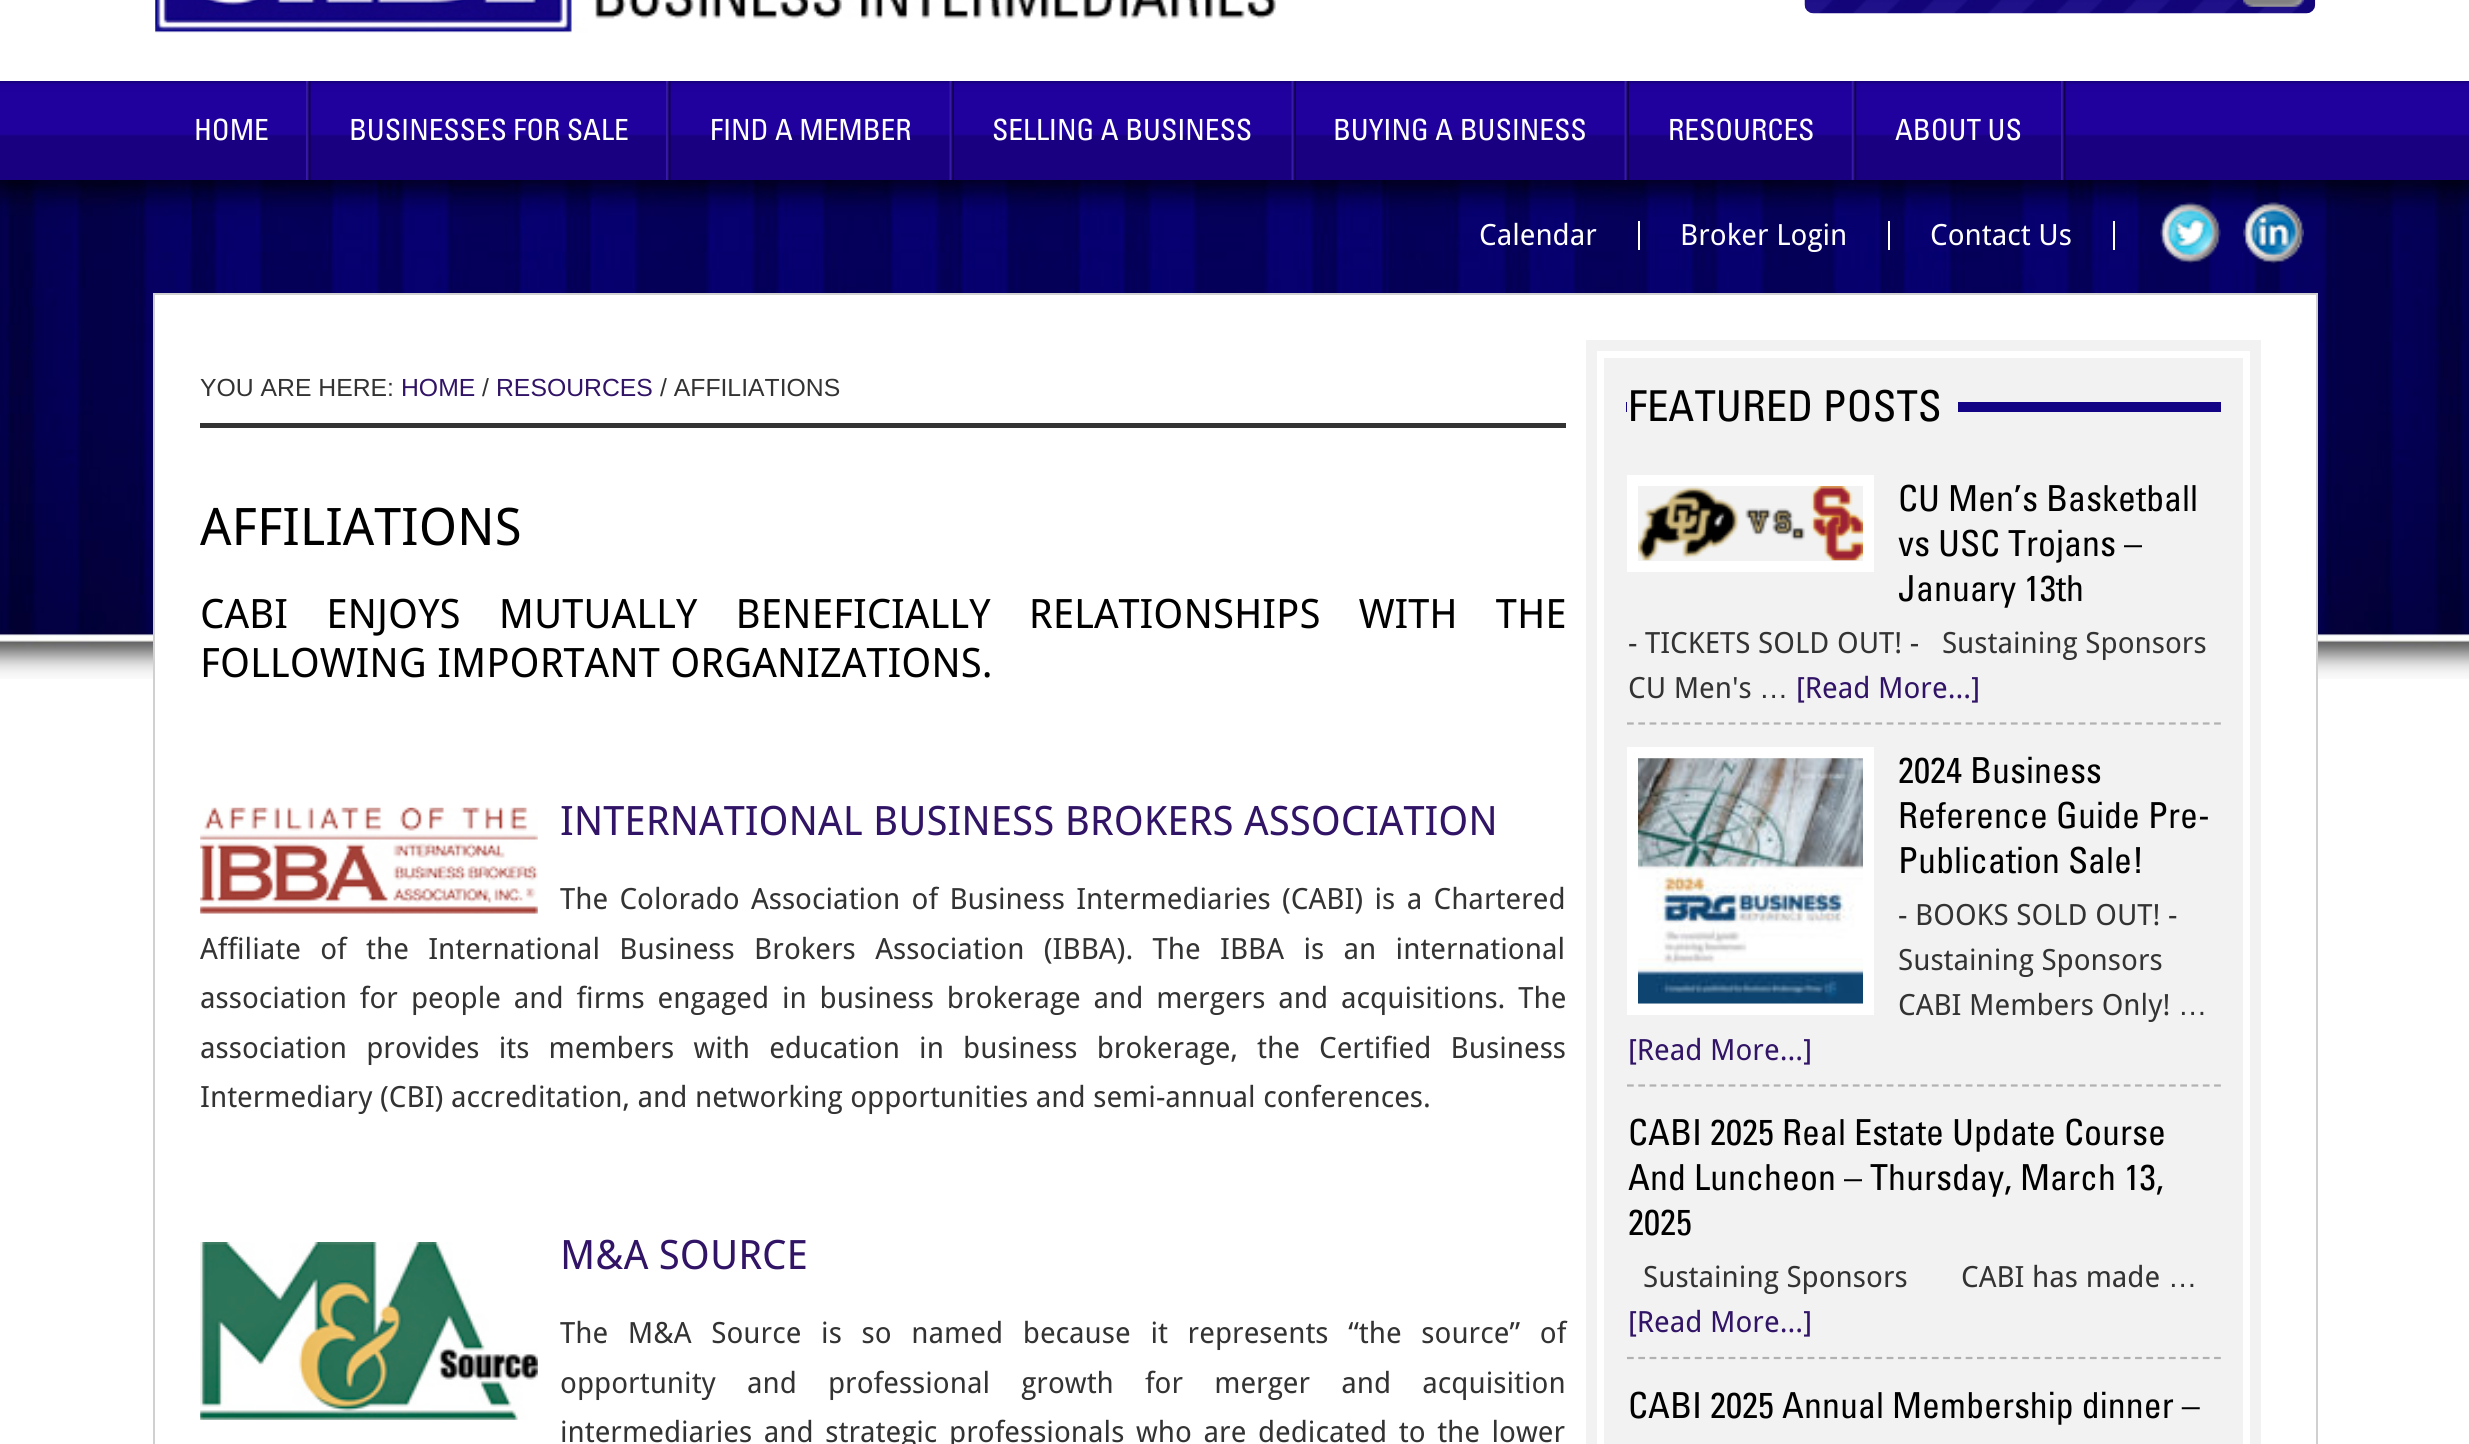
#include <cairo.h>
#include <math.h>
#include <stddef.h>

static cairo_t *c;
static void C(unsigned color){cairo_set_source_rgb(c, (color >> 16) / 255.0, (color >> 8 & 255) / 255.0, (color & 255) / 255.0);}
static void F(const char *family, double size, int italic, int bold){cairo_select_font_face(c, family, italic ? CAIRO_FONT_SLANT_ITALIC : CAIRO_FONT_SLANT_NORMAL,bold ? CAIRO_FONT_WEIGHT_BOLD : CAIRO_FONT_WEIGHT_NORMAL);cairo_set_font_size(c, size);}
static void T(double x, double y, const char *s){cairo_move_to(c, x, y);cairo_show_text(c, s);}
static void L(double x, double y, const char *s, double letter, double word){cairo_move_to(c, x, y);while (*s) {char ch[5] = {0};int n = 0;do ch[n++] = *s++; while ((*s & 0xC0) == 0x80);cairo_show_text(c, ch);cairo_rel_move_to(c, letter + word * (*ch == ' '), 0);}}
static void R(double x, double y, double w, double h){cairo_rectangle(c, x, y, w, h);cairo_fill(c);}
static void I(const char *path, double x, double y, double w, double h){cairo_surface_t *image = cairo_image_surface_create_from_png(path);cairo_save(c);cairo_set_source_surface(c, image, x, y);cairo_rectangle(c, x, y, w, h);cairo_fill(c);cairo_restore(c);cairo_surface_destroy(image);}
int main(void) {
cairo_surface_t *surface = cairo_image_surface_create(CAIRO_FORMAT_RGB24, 2469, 1444);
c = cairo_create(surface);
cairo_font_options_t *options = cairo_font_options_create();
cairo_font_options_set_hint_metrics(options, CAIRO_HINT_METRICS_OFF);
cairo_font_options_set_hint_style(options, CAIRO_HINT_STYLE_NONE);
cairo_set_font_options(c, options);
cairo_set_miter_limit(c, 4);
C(0xffffff);
cairo_paint(c);
I("1.png",155,0,1121,33);
I("2.png",1804,0,512,14);
I("3.png",2243,0,61,7);
I("4.png",0,81,2469,99);
I("5.png",306,81,5,99);
F("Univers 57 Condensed",29.25,0,0);
C(0xffffff);
T(194,140,"HOME");
I("5.png",666,81,5,99);
T(349,140,"BUSINESSES FOR SALE");
I("6.png",949,81,5,99);
T(710,140,"FIND A MEMBER");
I("6.png",1291,81,5,99);
T(992,140,"SELLING A BUSINESS");
I("6.png",1624,81,5,99);
T(1333,140,"BUYING A BUSINESS");
I("7.png",1851,81,6,99);
T(1668,140,"RESOURCES");
I("5.png",2061,81,5,99);
T(1895,140,"ABOUT US");
I("8.png",0,180,2469,499);
R(1638,221,2,29);
F("Droid Sans",29.25,0,0);
T(1479,245,"Calendar");
R(1888,221,2,29);
T(1680,245,"Broker Login");
R(2113,221,2,29);
T(1930,245,"Contact Us");
I("9.png",2160,202,61,62);
I("10.png",2243,202,61,62);
R(155,295,2161,384);
cairo_rectangle(c,154,294,2163,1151);
C(0xd0d0d0);
cairo_stroke(c);
C(0x333333);
R(200,423,1366,5);
F("Liberation Sans",24.75,0,0);
T(200,396,"YOU ARE HERE:");
C(0x311466);
T(401,396,"HOME");
C(0x333333);
T(482,396,"/");
C(0x311466);
T(496,396,"RESOURCES");
C(0x333333);
T(660,396,"/ AFFILIATIONS");
F("Droid Sans",51.75,0,0);
C(0x000000);
T(200,545,"AFFILIATIONS");
F("Droid Sans",40.5,0,0);
L(200,628,"CABI ENJOYS MUTUALLY BENEFICIALLY RELATIONSHIPS WITH THE",0,27.75);
T(200,677,"FOLLOWING IMPORTANT ORGANIZATIONS.");
I("11.png",200,807,338,107);
C(0x311466);
T(560,835,"INTERNATIONAL BUSINESS BROKERS ASSOCIATION");
F("Droid Sans",29.25,0,0);
C(0x333333);
L(560,909,"The Colorado Association of Business Intermediaries (CABI) is a Chartered",0,3.75);
L(200,959,"Affiliate of the International Business Brokers Association (IBBA). The IBBA is an international",0,11.75);
L(200,1008,"association for people and firms engaged in business brokerage and mergers and acquisitions. The",0,5.25);
L(200,1058,"association provides its members with education in business brokerage, the Certified Business",0,11.6);
T(200,1107,"Intermediary (CBI) accreditation, and networking opportunities and semi-annual conferences.");
I("12.png",200,1242,338,178);
F("Droid Sans",40.5,0,0);
C(0x311466);
T(560,1269,"M&A SOURCE");
F("Droid Sans",29.25,0,0);
C(0x333333);
L(560,1343,"The M&A Source is so named because it represents “the source” of",0,12.1);
L(560,1393,"opportunity and professional growth for merger and acquisition",0,23.5);
L(560,1442,"intermediaries and strategic professionals who are dedicated to the lower",0,4);
cairo_rectangle(c,1591.5,345.5,664,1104);
C(0xf2f2f2);
cairo_set_line_width(c,11);
cairo_stroke(c);
R(1604,358,639,1086);
C(0x130485);
R(1626,402,595,10);
C(0xf2f2f2);
R(1627,402,331,10);
F("Univers 57 Condensed",42.75,0,0);
C(0x000000);
T(1628,421,"FEATURED POSTS");
cairo_new_path(c);
cairo_move_to(c,1627,723.5);
cairo_line_to(c,2221,723.5);
C(0xb1b1b1);
cairo_set_line_width(c,2.2);
cairo_set_dash(c,(double[]){6.75,4.54},2,0);
cairo_stroke(c);
cairo_rectangle(c,1632.5,480.5,236,86);
C(0xffffff);
cairo_set_line_width(c,11);
cairo_set_dash(c,NULL,0,0);
cairo_stroke(c);
I("13.png",1638,486,225,75);
F("Univers 57 Condensed",36,0,0);
C(0x000000);
T(1898,511,"CU Men’s Basketball");
T(1898,556,"vs USC Trojans –");
T(1898,601,"January 13th");
F("Droid Sans",29.25,0,0);
C(0x333333);
T(1628,653,"- TICKETS SOLD OUT! -   Sustaining Sponsors");
T(1628,698,"CU Men's");
F("Liberation Sans",29.25,0,0);
T(1759,698,"…");
F("Droid Sans",29.25,0,0);
C(0x311466);
T(1796,698,"[Read More...]");
cairo_new_path(c);
cairo_move_to(c,1627,1085.5);
cairo_line_to(c,2221,1085.5);
C(0xb1b1b1);
cairo_set_line_width(c,2.2);
cairo_set_dash(c,(double[]){6.75,4.54},2,0);
cairo_stroke(c);
cairo_rectangle(c,1632.5,752.5,236,257);
C(0xffffff);
cairo_set_line_width(c,11);
cairo_set_dash(c,NULL,0,0);
cairo_stroke(c);
I("14.png",1638,758,225,246);
F("Univers 57 Condensed",36,0,0);
C(0x000000);
T(1898,783,"2024 Business");
T(1898,828,"Reference Guide Pre-");
T(1898,873,"Publication Sale!");
F("Droid Sans",29.25,0,0);
C(0x333333);
T(1898,925,"- BOOKS SOLD OUT! -");
T(1898,970,"Sustaining Sponsors");
T(1898,1015,"CABI Members Only!");
F("Liberation Sans",29.25,0,0);
T(2178,1015,"…");
F("Droid Sans",29.25,0,0);
C(0x311466);
T(1628,1060,"[Read More...]");
cairo_new_path(c);
cairo_move_to(c,1627,1358);
cairo_line_to(c,2221,1358);
C(0xb1b1b1);
cairo_set_line_width(c,2.2);
cairo_set_dash(c,(double[]){6.75,4.54},2,0);
cairo_stroke(c);
F("Univers 57 Condensed",36,0,0);
C(0x000000);
T(1628,1145,"CABI 2025 Real Estate Update Course");
T(1628,1190,"And Luncheon – Thursday, March 13,");
T(1628,1235,"2025");
F("Droid Sans",29.25,0,0);
C(0x333333);
T(1643,1287,"Sustaining Sponsors");
T(1961,1287,"CABI has made");
F("Liberation Sans",29.25,0,0);
T(2168,1287,"…");
F("Droid Sans",29.25,0,0);
C(0x311466);
T(1628,1332,"[Read More...]");
F("Univers 57 Condensed",36,0,0);
C(0x000000);
T(1628,1418,"CABI 2025 Annual Membership dinner –");
cairo_surface_write_to_png(surface, "o.png");
cairo_font_options_destroy(options);
cairo_destroy(c);
cairo_surface_destroy(surface);
return 0;
}
